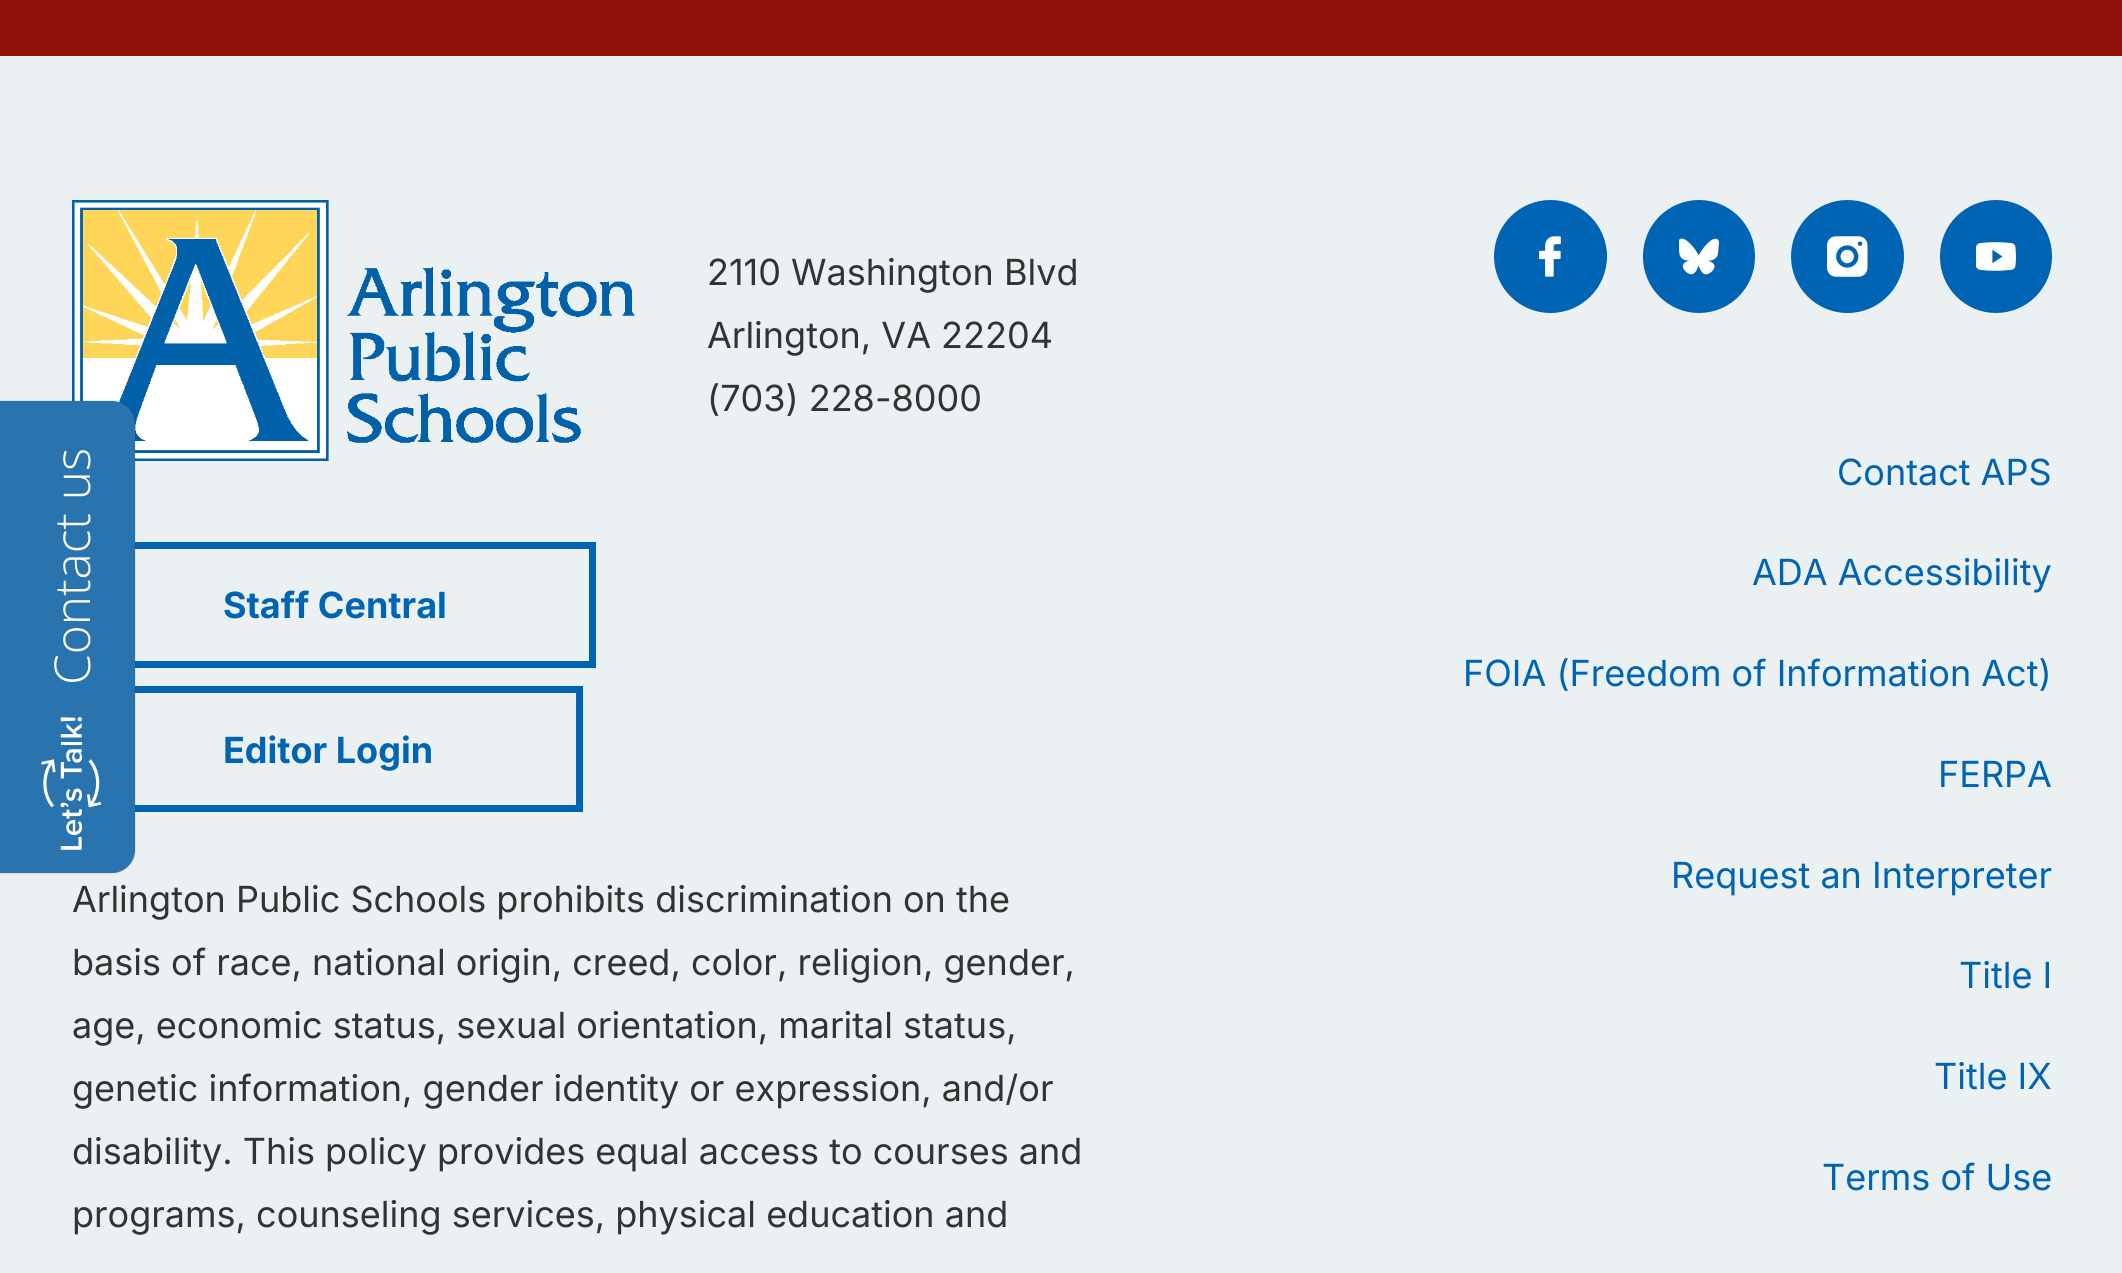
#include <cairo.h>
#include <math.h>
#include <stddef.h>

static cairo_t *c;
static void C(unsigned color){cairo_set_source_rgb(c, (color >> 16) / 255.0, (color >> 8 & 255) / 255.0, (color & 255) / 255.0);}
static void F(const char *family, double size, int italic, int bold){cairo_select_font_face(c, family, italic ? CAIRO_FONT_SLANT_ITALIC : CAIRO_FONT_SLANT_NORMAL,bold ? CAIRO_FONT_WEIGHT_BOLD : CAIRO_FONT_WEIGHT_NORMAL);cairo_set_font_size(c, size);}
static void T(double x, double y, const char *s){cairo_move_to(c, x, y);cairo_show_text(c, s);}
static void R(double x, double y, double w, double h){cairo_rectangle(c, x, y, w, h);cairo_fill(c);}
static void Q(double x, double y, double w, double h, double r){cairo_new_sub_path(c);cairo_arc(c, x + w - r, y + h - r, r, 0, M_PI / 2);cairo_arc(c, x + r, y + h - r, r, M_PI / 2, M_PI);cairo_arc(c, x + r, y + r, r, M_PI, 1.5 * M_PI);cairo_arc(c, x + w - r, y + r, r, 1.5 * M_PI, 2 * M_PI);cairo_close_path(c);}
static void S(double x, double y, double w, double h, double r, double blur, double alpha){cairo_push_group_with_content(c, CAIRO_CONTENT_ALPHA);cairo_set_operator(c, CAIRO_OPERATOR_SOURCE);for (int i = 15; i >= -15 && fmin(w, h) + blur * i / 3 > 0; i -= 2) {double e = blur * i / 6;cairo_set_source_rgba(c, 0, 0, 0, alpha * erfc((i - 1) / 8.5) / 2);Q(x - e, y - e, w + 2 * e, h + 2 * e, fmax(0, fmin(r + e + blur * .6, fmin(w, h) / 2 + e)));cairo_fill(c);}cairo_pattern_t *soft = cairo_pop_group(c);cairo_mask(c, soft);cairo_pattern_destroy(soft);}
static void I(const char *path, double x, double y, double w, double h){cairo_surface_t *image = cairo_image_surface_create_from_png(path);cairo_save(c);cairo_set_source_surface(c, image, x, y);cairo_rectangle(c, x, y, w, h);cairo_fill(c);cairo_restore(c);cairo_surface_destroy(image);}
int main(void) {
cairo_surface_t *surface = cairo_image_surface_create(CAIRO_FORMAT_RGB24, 2122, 1273);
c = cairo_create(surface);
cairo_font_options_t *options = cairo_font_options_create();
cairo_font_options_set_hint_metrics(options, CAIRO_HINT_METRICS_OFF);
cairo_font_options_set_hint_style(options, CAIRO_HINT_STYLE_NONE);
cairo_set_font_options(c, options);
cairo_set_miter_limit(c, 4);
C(0x91100c);
cairo_paint(c);
C(0xebf0f3);
R(0,56,2122,1217);
I("1.png",72,200,563,261);
F("Inter",36,0,0);
C(0x333333);
T(707,285,"2110 Washington Blvd");
T(707,348,"Arlington, VA 22204");
T(707,411,"(703) 228-8000");
cairo_rectangle(c,75.5,545.5,517,119);
C(0x0064b5);
cairo_set_line_width(c,7);
cairo_stroke(c);
F("Inter",36,0,1);
T(223,618,"Staff Central");
cairo_rectangle(c,75.5,689.5,504,119);
cairo_stroke(c);
T(223,763,"Editor Login");
F("Inter",36,0,0);
C(0x333333);
T(72,912,"Arlington Public Schools prohibits discrimination on the");
T(72,975,"basis of race, national origin, creed, color, religion, gender,");
T(72,1038,"age, economic status, sexual orientation, marital status,");
T(72,1101,"genetic information, gender identity or expression, and/or");
T(72,1164,"disability. This policy provides equal access to courses and");
T(72,1227,"programs, counseling services, physical education and");
C(0x0064b5);
cairo_new_path(c);
cairo_arc(c,1550.5,256.5,56.5,0,2 * M_PI);
cairo_fill(c);
I("2.png",1539,236,22,41);
Q(1643,200,112,113,56);
cairo_fill(c);
I("3.png",1679,238,40,37);
cairo_arc(c,1847.5,256.5,56.5,0,2 * M_PI);
cairo_fill(c);
I("4.png",1827,236,41,41);
Q(1940,200,112,113,56);
cairo_fill(c);
I("5.png",1976,242,40,29);
T(1837,485,"Contact APS");
T(1752,585,"ADA Accessibility");
T(1463,686,"FOIA (Freedom of Information Act)");
T(1938,787,"FERPA");
T(1671,888,"Request an Interpreter");
T(1959,988,"Title I");
T(1934,1089,"Title IX");
T(1822,1190,"Terms of Use");
C(0x000000);
S(-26,401,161,472,23,1,.22);
C(0x2974ae);
cairo_new_path(c);
cairo_move_to(c,0,401);
cairo_line_to(c,112,401);
cairo_curve_to(c,124.5,401,135,411.5,135,424);
cairo_line_to(c,135,850);
cairo_curve_to(c,135,862.5,124.5,873,112,873);
cairo_line_to(c,0,873);
cairo_close_path(c);
cairo_fill(c);
F("Open Sans Light",49.5,0,0);
C(0xffffff);
cairo_save(c);
cairo_translate(c,90,685);
cairo_rotate(c,-90 * M_PI / 180);
T(0,0,"Contact us");
cairo_restore(c);
I("6.png",41,717,61,133);
cairo_surface_write_to_png(surface, "o.png");
cairo_font_options_destroy(options);
cairo_destroy(c);
cairo_surface_destroy(surface);
return 0;
}
